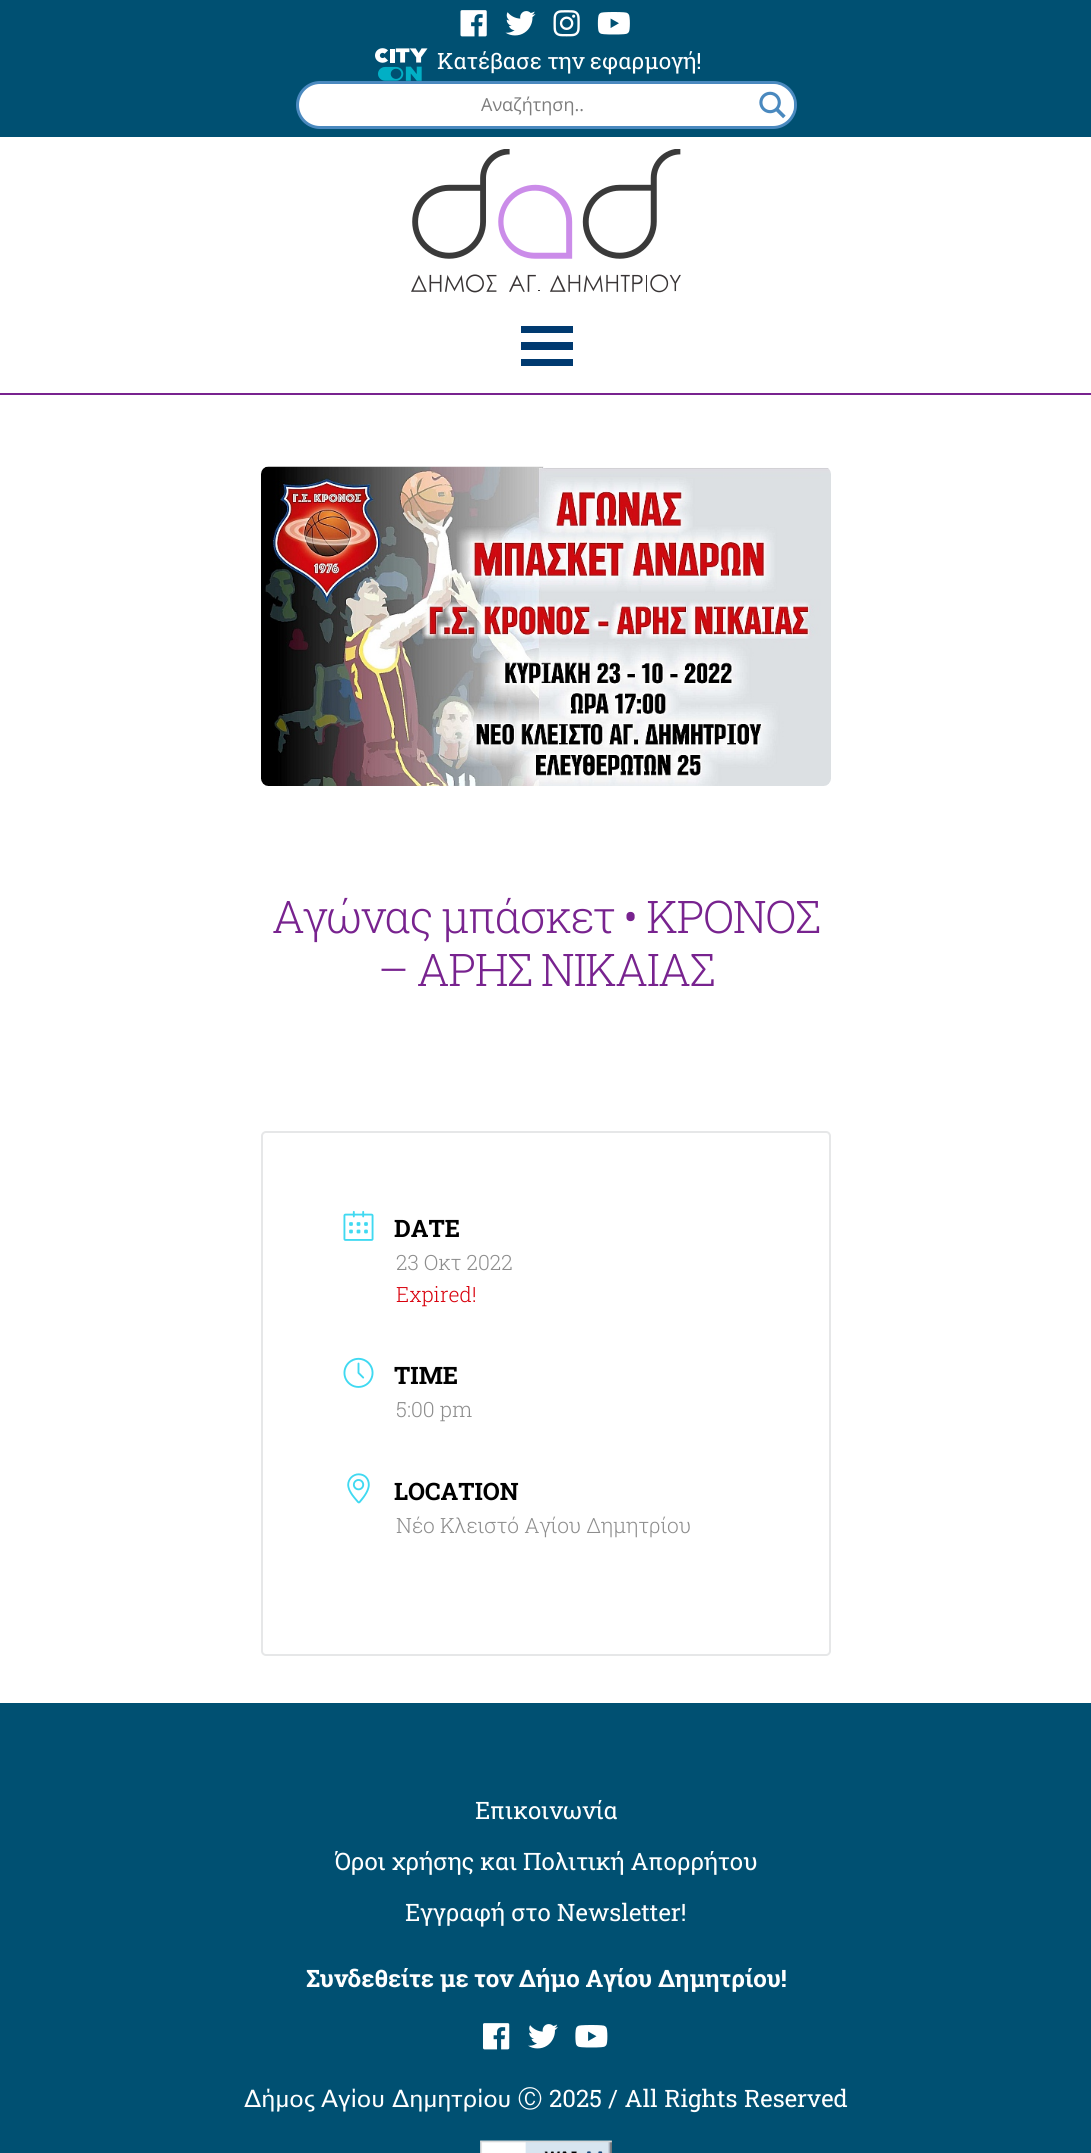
#include <cairo.h>
#include <math.h>
#include <stddef.h>

static cairo_t *c;
static void C(unsigned color){cairo_set_source_rgb(c, (color >> 16) / 255.0, (color >> 8 & 255) / 255.0, (color & 255) / 255.0);}
static void F(const char *family, double size, int italic, int bold){cairo_select_font_face(c, family, italic ? CAIRO_FONT_SLANT_ITALIC : CAIRO_FONT_SLANT_NORMAL,bold ? CAIRO_FONT_WEIGHT_BOLD : CAIRO_FONT_WEIGHT_NORMAL);cairo_set_font_size(c, size);}
static void T(double x, double y, const char *s){cairo_move_to(c, x, y);cairo_show_text(c, s);}
static void L(double x, double y, const char *s, double letter, double word){cairo_move_to(c, x, y);while (*s) {char ch[5] = {0};int n = 0;do ch[n++] = *s++; while ((*s & 0xC0) == 0x80);cairo_show_text(c, ch);cairo_rel_move_to(c, letter + word * (*ch == ' '), 0);}}
static void R(double x, double y, double w, double h){cairo_rectangle(c, x, y, w, h);cairo_fill(c);}
static void Q(double x, double y, double w, double h, double r){cairo_new_sub_path(c);cairo_arc(c, x + w - r, y + h - r, r, 0, M_PI / 2);cairo_arc(c, x + r, y + h - r, r, M_PI / 2, M_PI);cairo_arc(c, x + r, y + r, r, M_PI, 1.5 * M_PI);cairo_arc(c, x + w - r, y + r, r, 1.5 * M_PI, 2 * M_PI);cairo_close_path(c);}
static void I(const char *path, double x, double y, double w, double h){cairo_surface_t *image = cairo_image_surface_create_from_png(path);cairo_save(c);cairo_set_source_surface(c, image, x, y);cairo_rectangle(c, x, y, w, h);cairo_fill(c);cairo_restore(c);cairo_surface_destroy(image);}
int main(void) {
cairo_surface_t *surface = cairo_image_surface_create(CAIRO_FORMAT_RGB24, 1091, 2153);
c = cairo_create(surface);
cairo_font_options_t *options = cairo_font_options_create();
cairo_font_options_set_hint_metrics(options, CAIRO_HINT_METRICS_OFF);
cairo_font_options_set_hint_style(options, CAIRO_HINT_STYLE_NONE);
cairo_set_font_options(c, options);
cairo_set_miter_limit(c, 4);
C(0xffffff);
cairo_paint(c);
C(0x005072);
R(0,0,1091,137);
I("1.png",460,10,27,27);
I("2.png",505,11,31,25);
I("3.png",553,10,27,27);
I("4.png",597,12,33,23);
I("5.png",375,48,53,33);
F("Roboto Slab",22.5,0,0);
C(0xffffff);
T(437,69,"Κατέβασε την εφαρμογή!");
Q(297.5,82.5,498,45,22.5);
cairo_fill_preserve(c);
C(0x4a89bf);
cairo_set_line_width(c,3);
cairo_stroke(c);
F("Open Sans",18,0,0);
C(0x7d7d7d);
T(481,111,"Αναζήτηση..");
cairo_save(c);
cairo_rectangle(c,752,84,42,42);
cairo_clip(c);
cairo_set_source_rgba(c,1,1,1,0.64);
cairo_set_fill_rule(c,CAIRO_FILL_RULE_EVEN_ODD);
cairo_new_path(c);
cairo_move_to(c,750,86);
cairo_line_to(c,750,126);
cairo_line_to(c,603,126);
cairo_line_to(c,603,84);
cairo_line_to(c,773,84);
cairo_curve_to(c,776,84,779,85,782,86);
cairo_close_path(c);
cairo_move_to(c,792,114);
cairo_curve_to(c,795,108,795,102,792,96);
cairo_close_path(c);
cairo_fill(c);
cairo_restore(c);
I("6.png",759,91,27,28);
C(0x78238f);
R(0,393,1091,2);
I("7.png",411,149,270,144);
C(0x003a70);
R(521,326,52,7);
R(521,342,52,8);
R(521,359,52,7);
I("8.png",261,466,570,320);
F("Roboto Slab Light",45,0,0);
C(0x78238f);
L(272,933,"Αγώνας μπάσκετ • ΚΡΟΝΟΣ",-1.5,0);
L(378,986,"– ΑΡΗΣ ΝΙΚΑΙΑΣ",-1.5,0);
Q(262,1132,568,523,4);
C(0xe6e7e8);
cairo_set_line_width(c,2);
cairo_stroke(c);
I("9.png",343,1210,31,31);
F("Roboto Slab",24,0,1);
C(0x000000);
T(394,1237,"DATE");
F("Roboto Slab Light",21,0,0);
C(0x8d8d8d);
T(396,1270,"23 Οκτ 2022");
C(0xd8000c);
T(396,1302,"Expired!");
I("10.png",343,1357,31,31);
F("Roboto Slab",24,0,1);
C(0x000000);
T(394,1384,"TIME");
F("Roboto Slab Light",21,0,0);
C(0x8d8d8d);
T(396,1417,"5:00 pm");
I("11.png",347,1473,23,31);
F("Roboto Slab",24,0,1);
C(0x000000);
T(394,1500,"LOCATION");
F("Roboto Slab Light",21,0,0);
C(0x8d8d8d);
T(396,1533,"Νέο Κλειστό Αγίου Δημητρίου");
C(0x005072);
R(0,1703,1091,450);
F("Roboto Slab",24,0,0);
C(0xffffff);
T(475,1819,"Επικοινωνία");
T(335,1870,"Όροι χρήσης και Πολιτική Απορρήτου");
T(405,1921,"Εγγραφή στο Newsletter!");
F("Roboto Slab",24,0,1);
T(306,1987,"Συνδεθείτε με τον Δήμο Αγίου Δημητρίου!");
I("12.png",483,2023,27,27);
I("13.png",528,2024,30,25);
I("14.png",575,2025,33,23);
F("WenQuanYi Zen Hei Medium",24,0,0);
T(244,2107,"Δήμος");
T(321,2107,"Αγίου");
T(392,2107,"Δημητρίου");
T(518,2107,"Ⓒ");
F("Roboto Slab",24,0,0);
L(549,2107,"2025 / All Rights Reserved",0,.5);
I("15.png",480,2140,132,13);
cairo_surface_write_to_png(surface, "o.png");
cairo_font_options_destroy(options);
cairo_destroy(c);
cairo_surface_destroy(surface);
return 0;
}
